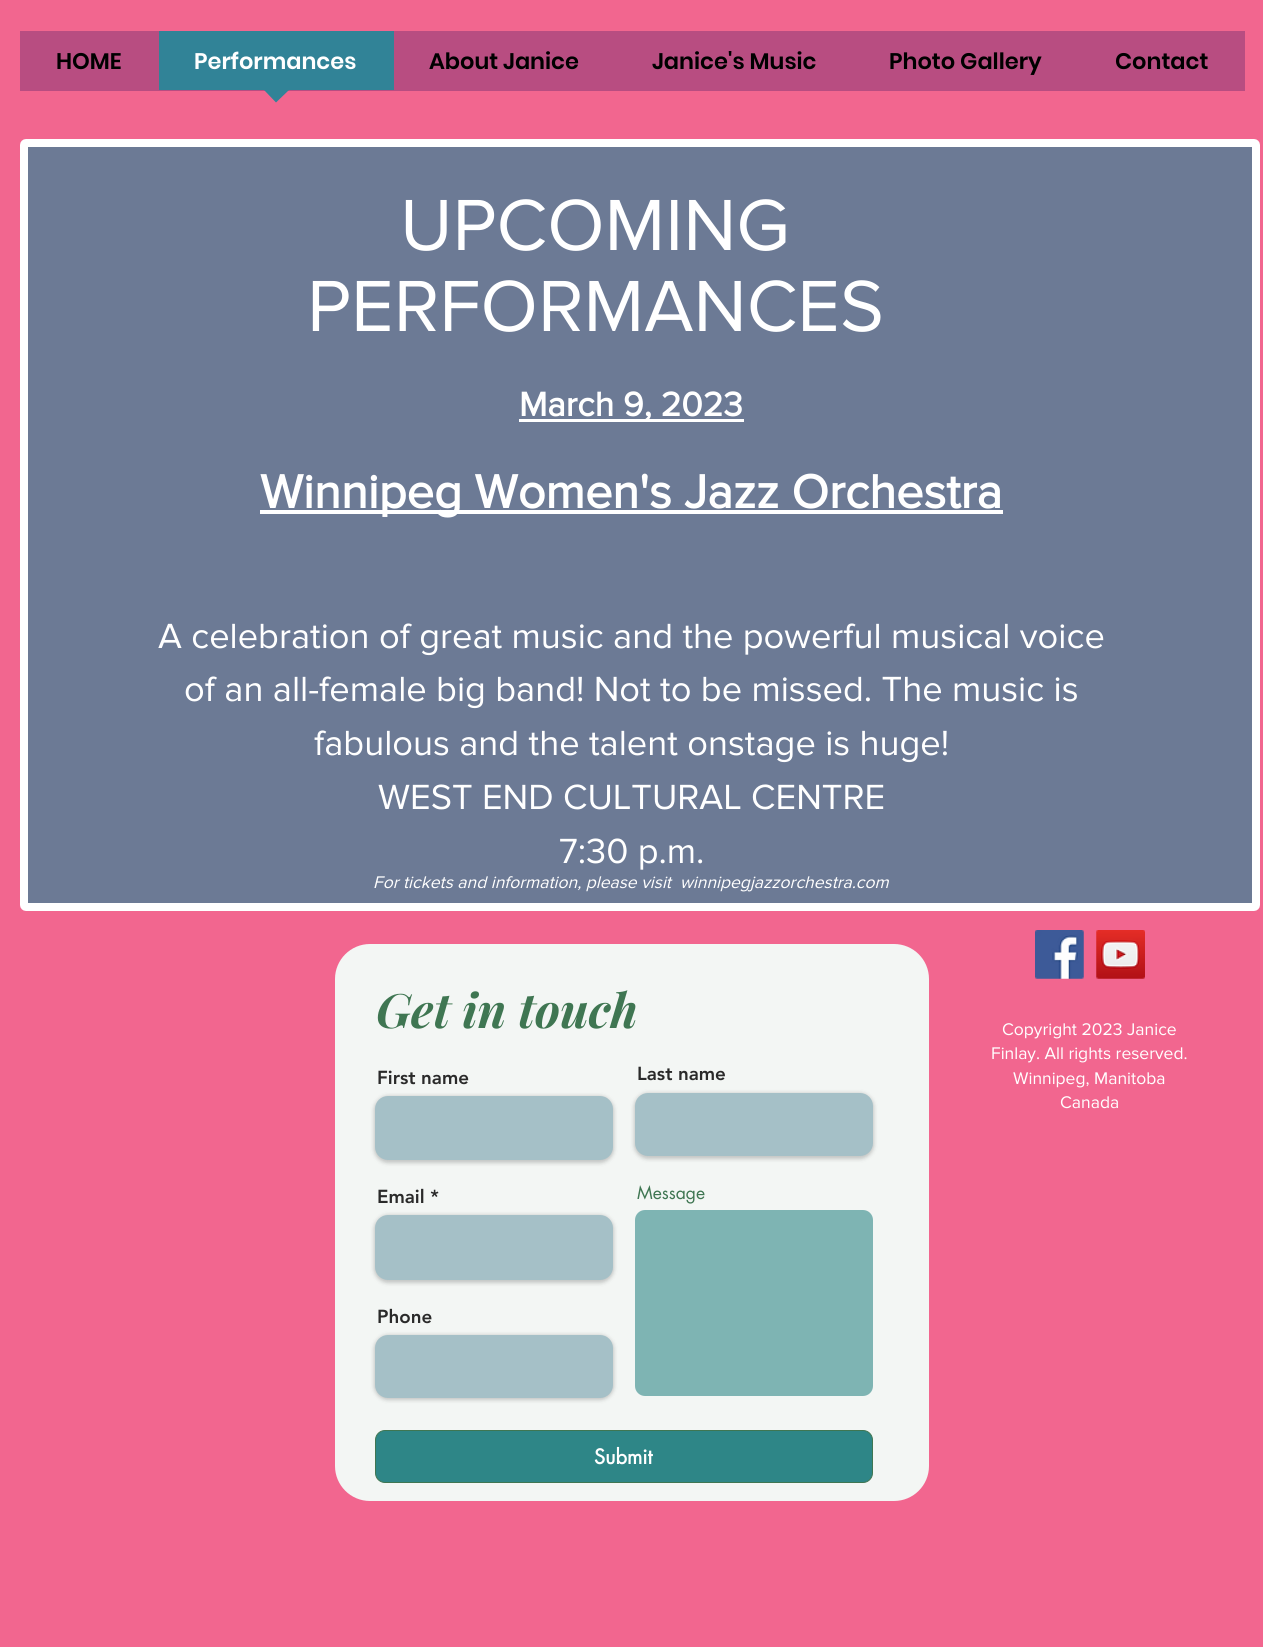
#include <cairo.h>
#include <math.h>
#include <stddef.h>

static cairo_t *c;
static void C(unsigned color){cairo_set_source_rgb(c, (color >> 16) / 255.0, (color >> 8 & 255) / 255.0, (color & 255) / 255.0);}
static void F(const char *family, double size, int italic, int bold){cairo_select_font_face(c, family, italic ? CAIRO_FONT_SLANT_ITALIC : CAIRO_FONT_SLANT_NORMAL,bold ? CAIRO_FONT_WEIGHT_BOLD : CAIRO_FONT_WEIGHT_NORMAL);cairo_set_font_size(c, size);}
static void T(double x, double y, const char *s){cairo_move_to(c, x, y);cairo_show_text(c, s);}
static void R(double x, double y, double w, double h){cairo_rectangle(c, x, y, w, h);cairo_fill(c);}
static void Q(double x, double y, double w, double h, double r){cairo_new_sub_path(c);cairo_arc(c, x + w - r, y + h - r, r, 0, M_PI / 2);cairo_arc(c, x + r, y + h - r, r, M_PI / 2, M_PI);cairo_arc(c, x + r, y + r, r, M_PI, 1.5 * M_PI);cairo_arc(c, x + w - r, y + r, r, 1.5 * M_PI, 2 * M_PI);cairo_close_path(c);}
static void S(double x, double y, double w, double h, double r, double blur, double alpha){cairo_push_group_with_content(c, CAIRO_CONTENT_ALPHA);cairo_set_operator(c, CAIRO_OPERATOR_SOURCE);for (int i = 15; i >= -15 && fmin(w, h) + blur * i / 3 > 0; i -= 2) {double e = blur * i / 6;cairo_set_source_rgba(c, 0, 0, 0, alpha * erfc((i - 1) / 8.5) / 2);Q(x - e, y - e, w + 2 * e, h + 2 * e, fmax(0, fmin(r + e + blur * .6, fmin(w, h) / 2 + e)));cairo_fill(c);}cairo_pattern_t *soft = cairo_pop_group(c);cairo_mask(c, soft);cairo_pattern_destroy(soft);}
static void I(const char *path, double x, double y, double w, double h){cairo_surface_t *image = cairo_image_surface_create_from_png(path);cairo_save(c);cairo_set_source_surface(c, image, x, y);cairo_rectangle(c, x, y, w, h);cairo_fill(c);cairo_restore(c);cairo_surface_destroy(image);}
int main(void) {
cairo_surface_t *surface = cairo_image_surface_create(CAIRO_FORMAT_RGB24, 1263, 1647);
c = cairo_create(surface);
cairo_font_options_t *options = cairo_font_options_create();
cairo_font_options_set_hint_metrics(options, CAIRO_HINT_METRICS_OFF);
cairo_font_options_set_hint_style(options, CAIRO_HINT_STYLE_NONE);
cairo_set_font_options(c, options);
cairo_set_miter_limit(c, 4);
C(0xf2668f);
cairo_paint(c);
C(0xb84d81);
R(20,31,1225,60);
F("Poppins SemiBold",22.5,0,0);
C(0x000000);
T(56,69,"HOME");
C(0x318397);
R(159,31,235,59);
C(0xffffff);
T(194,69,"Performances");
C(0x318397);
cairo_new_path(c);
cairo_move_to(c,264,90);
cairo_line_to(c,289,90);
cairo_line_to(c,276,102.5);
cairo_close_path(c);
cairo_fill(c);
C(0x000000);
T(429,69,"About Janice");
T(652,69,"Janice's Music");
T(889,69,"Photo Gallery");
T(1115,69,"Contact");
C(0x6c7a95);
Q(24,143,1232,764,2);
cairo_fill_preserve(c);
C(0xffffff);
cairo_set_line_width(c,8);
cairo_stroke(c);
F("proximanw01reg",75,0,0);
T(400,250,"UPCOMING");
T(307,331,"PERFORMANCES");
R(519,419,225,3);
F("proximanw01reg",35,0,1);
T(519,416,"March 9, 2023");
R(260,510,743,4);
F("proximanw01reg",48.75,0,1);
T(260,508,"Winnipeg Women's Jazz Orchestra");
F("proximanw01reg",36.25,0,0);
T(158,648,"A celebration of great music and the powerful musical voice");
T(184,701,"of an all-female big band! Not to be missed. The music is");
T(314,755,"fabulous and the talent onstage is huge!");
T(378,809,"WEST END CULTURAL CENTRE");
T(559,863,"7:30 p.m.");
F("proximanw01reg",17.5,1,0);
T(373,888,"For tickets and information, please visit  winnipegjazzorchestra.com");
I("1.png",1035,930,49,49);
I("2.png",1096,930,49,49);
C(0xf3f6f4);
Q(335,944,594,557,35);
cairo_fill(c);
F("Playfair Display",47.5,1,1);
C(0x3f7652);
T(376,1028,"Get in touch");
F("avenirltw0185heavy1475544 Black",18.75,0,0);
C(0x2a2a2a);
T(377,1084,"First name");
C(0x000000);
S(374,1096,240,67,14,2,.2);
C(0xa5c0c7);
Q(375,1096,238,64,13);
cairo_fill(c);
C(0x2a2a2a);
T(637,1080,"Last name");
C(0x000000);
S(634,1093,240,66,14,2,.2);
C(0xa5c0c7);
Q(635,1093,238,63,13);
cairo_fill(c);
C(0x2a2a2a);
T(377,1203,"Email *");
C(0x000000);
S(374,1215,240,68,14,2,.2);
C(0xa5c0c7);
Q(375,1215,238,65,13);
cairo_fill(c);
F("futura",17.5,0,0);
C(0x3f7652);
T(637,1199,"Message");
C(0x7eb4b3);
Q(635,1210,238,186,10);
cairo_fill(c);
F("avenirltw0185heavy1475544 Black",18.75,0,0);
C(0x2a2a2a);
T(377,1323,"Phone");
C(0x000000);
S(374,1335,240,65,14,2,.2);
C(0xa5c0c7);
Q(375,1335,238,63,13);
cairo_fill(c);
C(0x2e8687);
Q(375.5,1430.5,497,52,9.5);
cairo_fill_preserve(c);
C(0x3f7652);
cairo_set_line_width(c,1);
cairo_stroke(c);
F("futura",20,0,1);
C(0xffffff);
T(594,1464,"Submit");
F("proximanw01reg",17.5,0,0);
T(1002,1035,"Copyright 2023 Janice");
T(991,1059,"Finlay. All rights reserved.");
T(1013,1084,"Winnipeg, Manitoba");
T(1060,1108,"Canada");
cairo_surface_write_to_png(surface, "o.png");
cairo_font_options_destroy(options);
cairo_destroy(c);
cairo_surface_destroy(surface);
return 0;
}
